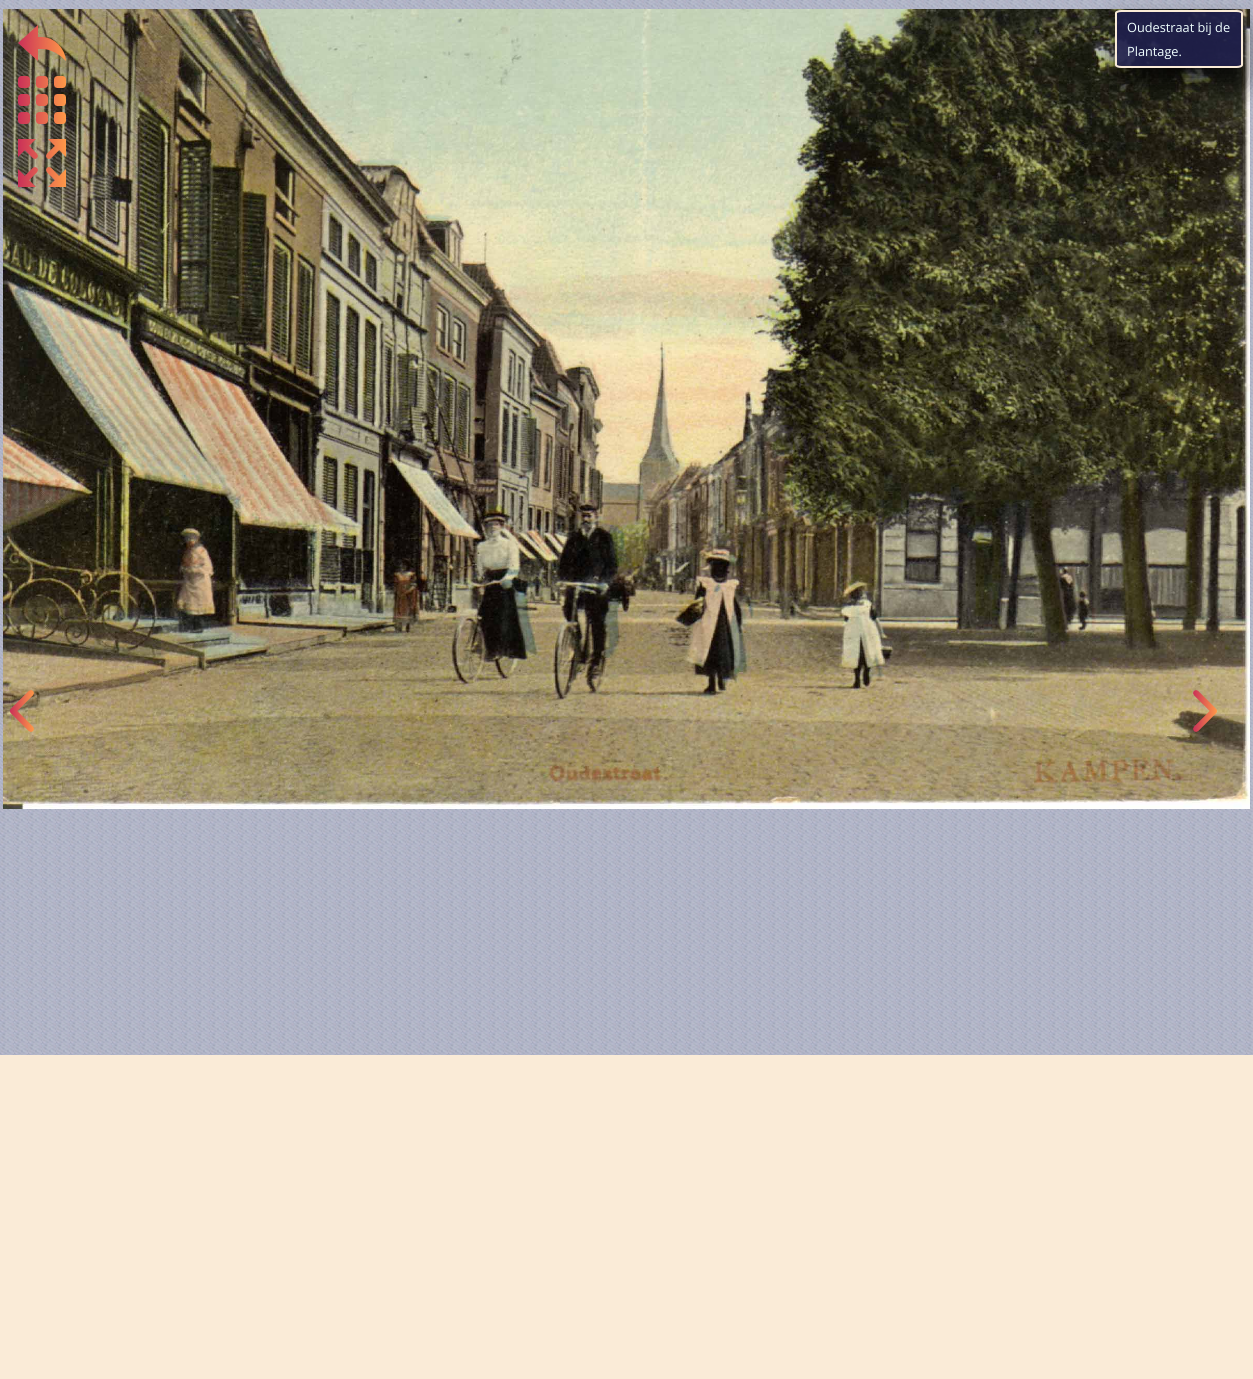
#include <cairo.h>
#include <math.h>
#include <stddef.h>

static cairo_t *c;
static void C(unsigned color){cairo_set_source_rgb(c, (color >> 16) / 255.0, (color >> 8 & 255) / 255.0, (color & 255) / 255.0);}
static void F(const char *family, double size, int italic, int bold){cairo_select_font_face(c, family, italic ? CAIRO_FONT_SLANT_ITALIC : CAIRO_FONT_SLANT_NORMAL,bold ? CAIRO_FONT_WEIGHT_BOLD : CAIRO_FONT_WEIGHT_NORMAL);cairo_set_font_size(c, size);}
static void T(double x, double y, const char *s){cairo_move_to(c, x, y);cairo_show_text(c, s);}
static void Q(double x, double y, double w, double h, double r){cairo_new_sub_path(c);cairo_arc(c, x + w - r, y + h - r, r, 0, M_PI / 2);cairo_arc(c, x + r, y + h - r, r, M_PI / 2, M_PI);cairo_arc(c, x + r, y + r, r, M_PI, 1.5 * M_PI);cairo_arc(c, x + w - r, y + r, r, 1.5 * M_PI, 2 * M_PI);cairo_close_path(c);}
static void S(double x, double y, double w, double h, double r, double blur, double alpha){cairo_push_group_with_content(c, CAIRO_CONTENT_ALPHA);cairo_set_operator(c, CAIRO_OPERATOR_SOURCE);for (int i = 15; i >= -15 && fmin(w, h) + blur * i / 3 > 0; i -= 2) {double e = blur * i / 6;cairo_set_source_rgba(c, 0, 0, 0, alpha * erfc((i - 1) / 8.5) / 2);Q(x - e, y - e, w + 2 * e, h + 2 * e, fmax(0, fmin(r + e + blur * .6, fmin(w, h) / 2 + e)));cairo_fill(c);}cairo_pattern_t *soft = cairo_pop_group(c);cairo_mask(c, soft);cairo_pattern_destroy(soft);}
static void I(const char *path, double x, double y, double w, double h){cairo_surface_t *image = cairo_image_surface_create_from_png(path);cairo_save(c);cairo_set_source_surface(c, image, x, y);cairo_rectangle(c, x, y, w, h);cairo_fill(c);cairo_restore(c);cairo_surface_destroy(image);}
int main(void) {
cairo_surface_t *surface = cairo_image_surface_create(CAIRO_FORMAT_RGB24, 1253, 1379);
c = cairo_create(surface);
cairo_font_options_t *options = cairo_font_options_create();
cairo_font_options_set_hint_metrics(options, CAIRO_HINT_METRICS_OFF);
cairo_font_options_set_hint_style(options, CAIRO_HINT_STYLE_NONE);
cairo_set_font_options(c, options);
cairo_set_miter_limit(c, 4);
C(0xfaebd7);
cairo_paint(c);
I("1.png",0,0,1253,1055);
I("5.png",3,9,1247,800);
I("2.png",18,25,48,36);
I("3.png",18,76,48,48);
I("4.png",18,139,48,48);
cairo_save(c);
cairo_set_fill_rule(c,CAIRO_FILL_RULE_EVEN_ODD);
cairo_new_path(c);
cairo_move_to(c,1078,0);
cairo_line_to(c,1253,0);
cairo_line_to(c,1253,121);
cairo_line_to(c,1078,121);
cairo_close_path(c);
cairo_move_to(c,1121.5,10);
cairo_line_to(c,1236.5,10);
cairo_curve_to(c,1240,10,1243,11.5,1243,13);
cairo_line_to(c,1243,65);
cairo_curve_to(c,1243,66.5,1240,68,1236.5,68);
cairo_line_to(c,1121.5,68);
cairo_curve_to(c,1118,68,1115,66.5,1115,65);
cairo_line_to(c,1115,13);
cairo_curve_to(c,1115,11.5,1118,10,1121.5,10);
cairo_close_path(c);
cairo_clip(c);
C(0x000000);
S(1115,26,128,58,3,12,.78);
cairo_restore(c);
cairo_set_source_rgba(c,0.118,0.118,0.298,0.9);
cairo_new_path(c);
cairo_move_to(c,1121,10);
cairo_line_to(c,1237,10);
cairo_curve_to(c,1240,10,1243,11,1243,13);
cairo_line_to(c,1243,65);
cairo_curve_to(c,1243,67,1240,68,1237,68);
cairo_line_to(c,1121,68);
cairo_curve_to(c,1118,68,1115,67,1115,65);
cairo_line_to(c,1115,13);
cairo_curve_to(c,1115,11,1118,10,1121,10);
cairo_close_path(c);
cairo_fill(c);
cairo_new_path(c);
cairo_move_to(c,1121.5,11);
cairo_line_to(c,1236.5,11);
cairo_curve_to(c,1239.5,11,1242,12,1242,13);
cairo_line_to(c,1242,65);
cairo_curve_to(c,1242,66,1239.5,67,1236.5,67);
cairo_line_to(c,1121.5,67);
cairo_curve_to(c,1118.5,67,1116,66,1116,65);
cairo_line_to(c,1116,13);
cairo_curve_to(c,1116,12,1118.5,11,1121.5,11);
cairo_close_path(c);
C(0xfaebd7);
cairo_stroke(c);
F("Open Sans",12.75,0,0);
C(0xf0ffff);
T(1127,32,"Oudestraat bij de");
T(1127,56,"Plantage.");
I("6.png",10,690,24,42);
I("7.png",1193,690,24,42);
cairo_surface_write_to_png(surface, "o.png");
cairo_font_options_destroy(options);
cairo_destroy(c);
cairo_surface_destroy(surface);
return 0;
}
